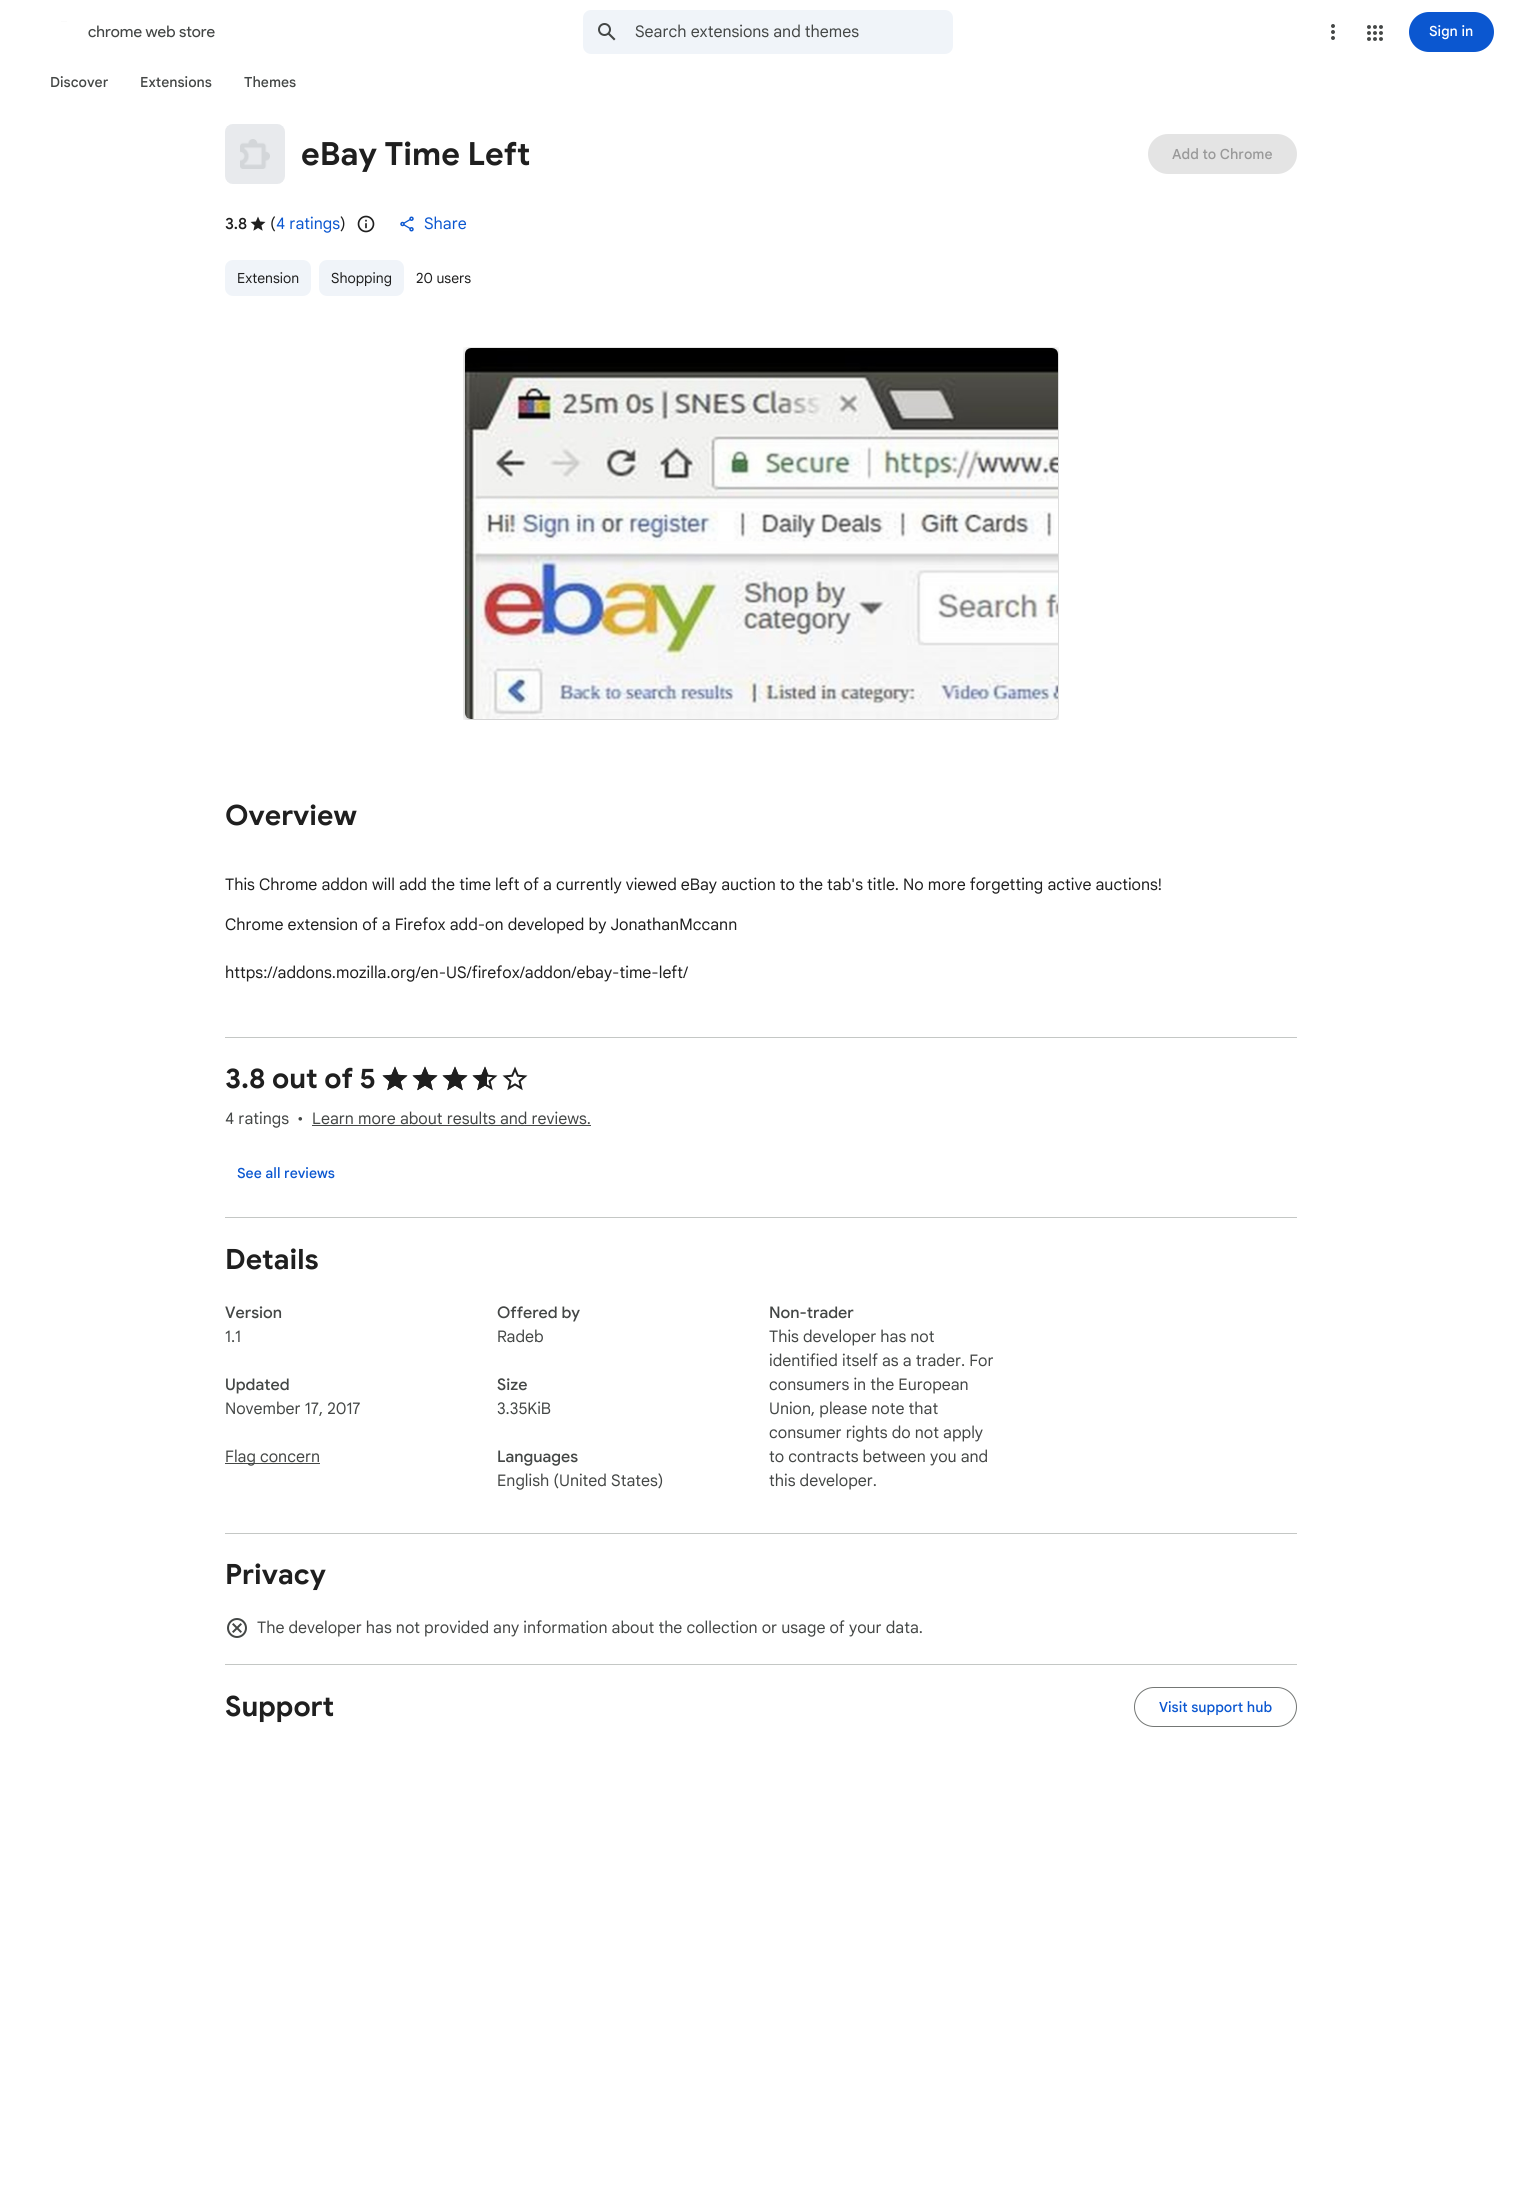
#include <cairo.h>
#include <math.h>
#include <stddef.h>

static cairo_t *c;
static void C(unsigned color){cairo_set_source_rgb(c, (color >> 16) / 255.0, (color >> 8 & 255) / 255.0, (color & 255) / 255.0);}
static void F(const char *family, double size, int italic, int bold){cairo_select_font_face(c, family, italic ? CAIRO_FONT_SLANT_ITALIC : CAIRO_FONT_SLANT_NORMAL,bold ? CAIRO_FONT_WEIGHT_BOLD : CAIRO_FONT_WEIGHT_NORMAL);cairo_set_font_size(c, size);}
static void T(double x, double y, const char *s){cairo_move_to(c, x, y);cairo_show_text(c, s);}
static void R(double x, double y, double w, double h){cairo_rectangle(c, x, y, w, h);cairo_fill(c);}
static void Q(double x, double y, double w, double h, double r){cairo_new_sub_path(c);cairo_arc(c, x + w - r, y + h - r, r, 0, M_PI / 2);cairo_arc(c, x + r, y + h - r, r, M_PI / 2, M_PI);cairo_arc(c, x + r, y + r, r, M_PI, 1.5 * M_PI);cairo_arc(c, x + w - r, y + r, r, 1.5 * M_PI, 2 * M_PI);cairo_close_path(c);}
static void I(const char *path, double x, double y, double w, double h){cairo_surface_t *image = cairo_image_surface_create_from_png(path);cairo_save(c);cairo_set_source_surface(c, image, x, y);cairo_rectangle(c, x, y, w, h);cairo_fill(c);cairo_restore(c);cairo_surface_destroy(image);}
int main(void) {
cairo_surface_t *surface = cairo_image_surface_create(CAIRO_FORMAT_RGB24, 1522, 2185);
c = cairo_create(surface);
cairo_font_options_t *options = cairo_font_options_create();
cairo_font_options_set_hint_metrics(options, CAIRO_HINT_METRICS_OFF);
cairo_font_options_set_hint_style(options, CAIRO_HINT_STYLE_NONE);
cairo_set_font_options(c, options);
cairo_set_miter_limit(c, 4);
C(0xffffff);
cairo_paint(c);
I("1.png",61,21,6,1);
F("Product Sans",16,0,0);
C(0x444746);
T(88,37,"chrome web store");
C(0xf0f4f9);
Q(583,10,370,44,8);
cairo_fill(c);
I("2.png",598,23,18,18);
F("Google Sans",16,0,0);
C(0x444746);
T(635,37,"Search extensions and themes");
I("3.png",1331,24,4,16);
I("4.png",1367,25,16,16);
C(0x0b57d0);
Q(1409,12,85,40,20);
cairo_fill(c);
F("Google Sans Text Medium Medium",14,0,0);
C(0xffffff);
T(1429,36,"Sign in");
C(0x444746);
T(50,87,"Discover");
T(140,87,"Extensions");
T(244,87,"Themes");
I("5.png",225,124,60,60);
F("Google Sans",32,0,1);
C(0x1f1f1f);
T(301,165,"eBay Time Left");
C(0xe4e4e4);
Q(1148,134,149,40,20);
cairo_fill(c);
F("Google Sans Text Medium Medium",14,0,0);
C(0x999999);
T(1172,159,"Add to Chrome");
F("Google Sans Medium",16,0,0);
C(0x1f1f1f);
T(225,229,"3.8");
I("6.png",250,216,16,15);
F("Google Sans",16,0,0);
T(270,229,"(");
C(0x0b57d0);
T(276,229,"4 ratings");
C(0x1f1f1f);
T(340,229,")");
I("7.png",357,215,18,18);
I("8.png",400,216,14,16);
F("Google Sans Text",16,0,0);
C(0x0b57d0);
T(424,229,"Share");
C(0xf0f4f9);
Q(225,260,86,36,8);
cairo_fill(c);
F("Google Sans",14,0,0);
C(0x1f1f1f);
T(237,283,"Extension");
C(0xf0f4f9);
Q(319,260,85,36,8);
cairo_fill(c);
C(0x1f1f1f);
T(331,283,"Shopping");
T(416,283,"20 users");
I("9.png",463,347,596,373);
C(0xc4c7c5);
R(225,1037,1072,1);
F("Google Sans",28,0,1);
C(0x1f1f1f);
T(225,825,"Overview");
F("Google Sans",16,0,0);
T(225,890,"This Chrome addon will add the time left of a currently viewed eBay auction to the tab's title. No more forgetting active auctions!");
T(225,930,"Chrome extension of a Firefox add-on developed by JonathanMccann");
T(225,978,"https://addons.mozilla.org/en-US/firefox/addon/ebay-time-left/");
C(0xc4c7c5);
R(225,1217,1072,1);
F("Google Sans",28,0,1);
C(0x1f1f1f);
T(225,1088,"3.8 out of 5");
I("10.png",382,1066,26,25);
I("10.png",412,1066,26,25);
I("10.png",442,1066,26,25);
I("10.png",472,1066,26,25);
I("10.png",502,1066,26,25);
I("11.png",382,1066,26,25);
I("11.png",412,1066,26,25);
I("11.png",442,1066,26,25);
I("12.png",472,1066,15,25);
F("Google Sans",16,0,0);
C(0x444746);
T(225,1124,"4 ratings");
T(297,1124,"•");
T(312,1124,"Learn more about results and reviews.");
R(312,1125,279,1);
F("Google Sans Text Medium Medium",14,0,0);
C(0x0b57d0);
T(237,1178,"See all reviews");
C(0xc4c7c5);
R(225,1533,1072,1);
F("Google Sans",28,0,1);
C(0x1f1f1f);
T(225,1269,"Details");
F("Google Sans Medium",16,0,0);
C(0x444746);
T(225,1318,"Version");
F("Google Sans",16,0,0);
T(225,1342,"1.1");
F("Google Sans Medium",16,0,0);
T(497,1318,"Offered by");
F("Google Sans",16,0,0);
T(497,1342,"Radeb");
F("Google Sans Medium",16,0,0);
T(769,1318,"Non-trader");
F("Google Sans",16,0,0);
T(769,1342,"This developer has not");
T(769,1366,"identified itself as a trader. For");
T(769,1390,"consumers in the European");
T(769,1414,"Union, please note that");
T(769,1438,"consumer rights do not apply");
T(769,1462,"to contracts between you and");
T(769,1486,"this developer.");
F("Google Sans Medium",16,0,0);
T(225,1390,"Updated");
F("Google Sans",16,0,0);
T(225,1414,"November 17, 2017");
F("Google Sans Medium",16,0,0);
T(497,1390,"Size");
F("Google Sans",16,0,0);
T(497,1414,"3.35KiB");
R(225,1463,95,1);
T(225,1462,"Flag concern");
F("Google Sans Medium",16,0,0);
T(497,1462,"Languages");
F("Google Sans",16,0,0);
T(497,1486,"English (United States)");
C(0xc4c7c5);
R(225,1664,1072,1);
F("Google Sans",28,0,1);
C(0x1f1f1f);
T(225,1584,"Privacy");
I("13.png",227,1618,20,20);
F("Google Sans",16,0,0);
C(0x444746);
T(257,1633,"The developer has not provided any information about the collection or usage of your data.");
F("Google Sans",28,0,1);
C(0x1f1f1f);
T(225,1716,"Support");
Q(1134.5,1687.5,162,39,19.5);
C(0x747775);
cairo_set_line_width(c,1);
cairo_stroke(c);
F("Google Sans Text Medium Medium",14,0,0);
C(0x0b57d0);
T(1159,1712,"Visit support hub");
cairo_surface_write_to_png(surface, "o.png");
cairo_font_options_destroy(options);
cairo_destroy(c);
cairo_surface_destroy(surface);
return 0;
}
